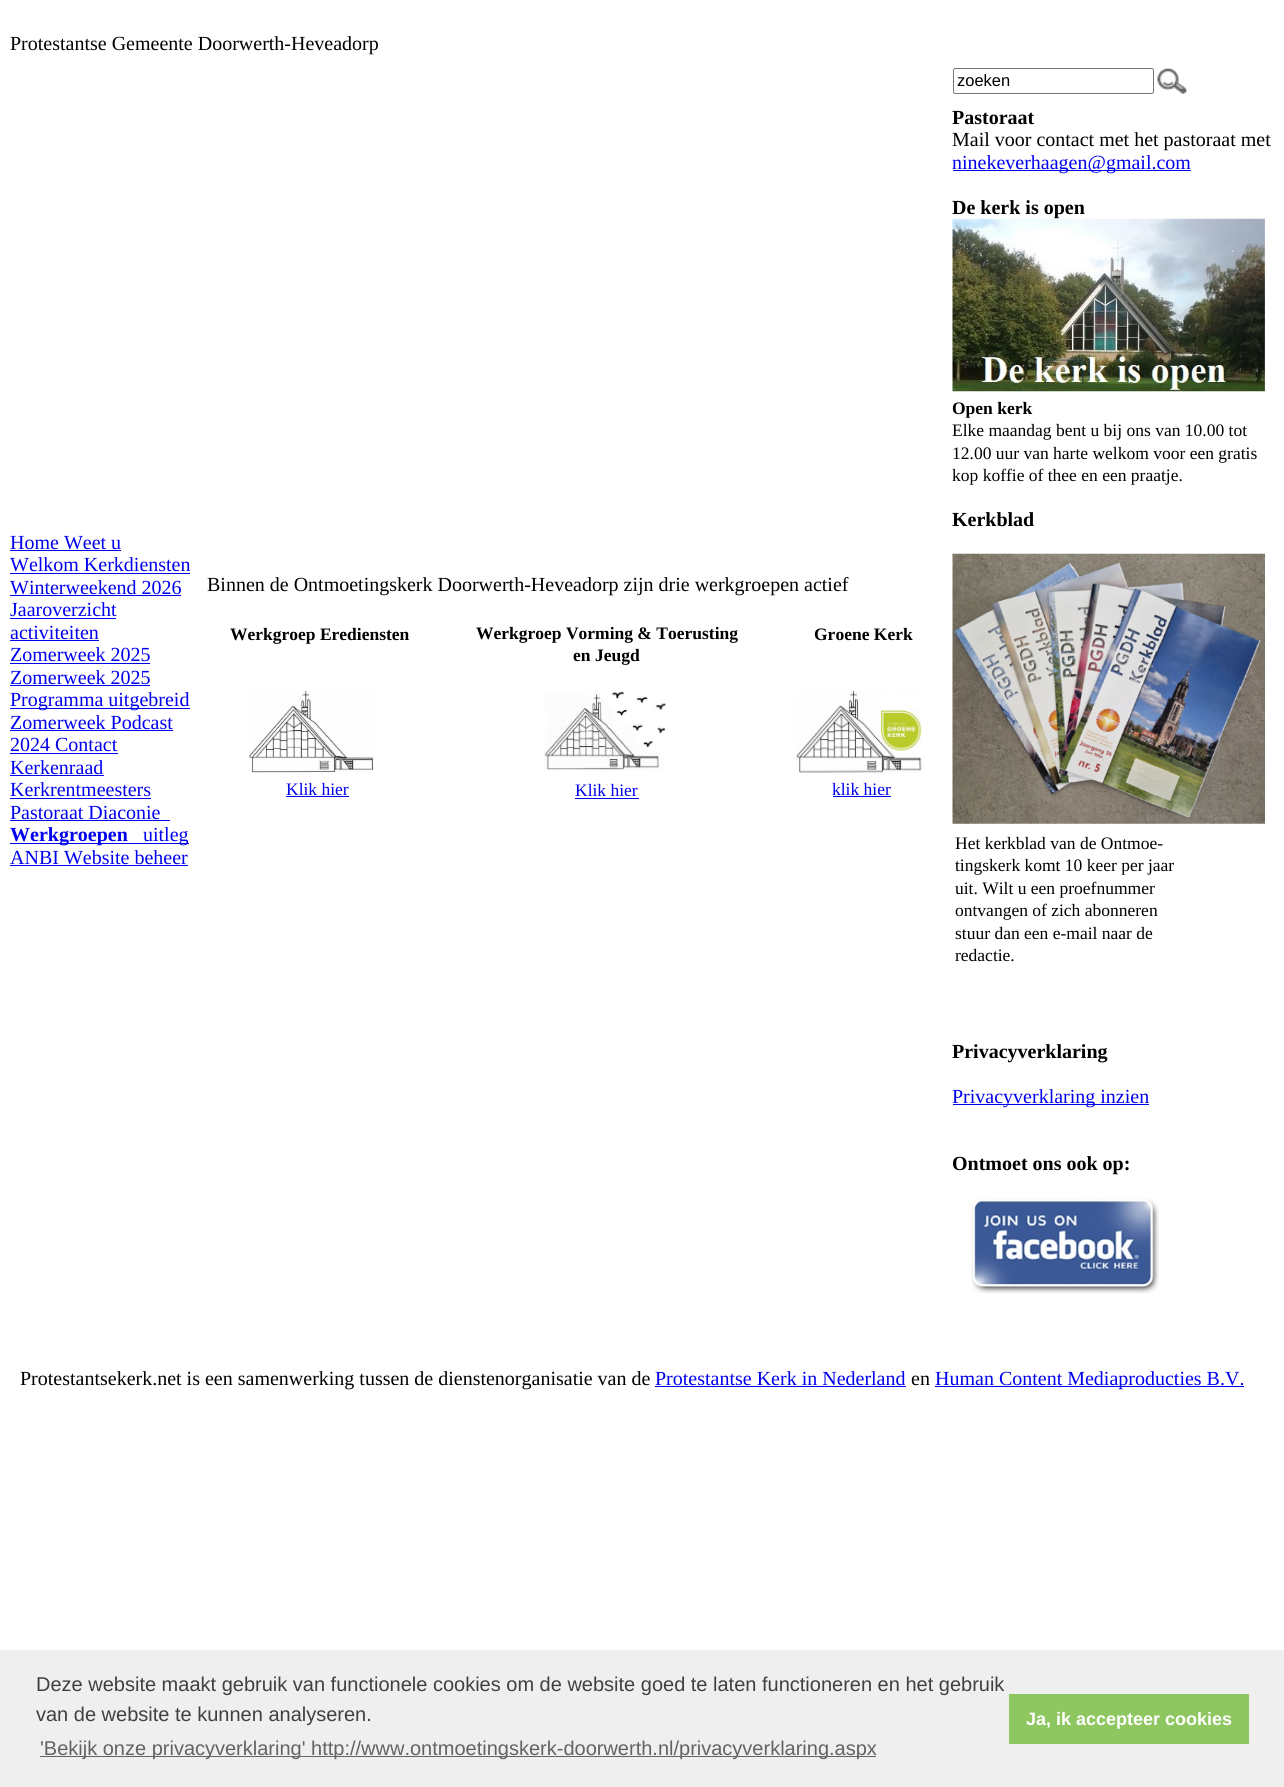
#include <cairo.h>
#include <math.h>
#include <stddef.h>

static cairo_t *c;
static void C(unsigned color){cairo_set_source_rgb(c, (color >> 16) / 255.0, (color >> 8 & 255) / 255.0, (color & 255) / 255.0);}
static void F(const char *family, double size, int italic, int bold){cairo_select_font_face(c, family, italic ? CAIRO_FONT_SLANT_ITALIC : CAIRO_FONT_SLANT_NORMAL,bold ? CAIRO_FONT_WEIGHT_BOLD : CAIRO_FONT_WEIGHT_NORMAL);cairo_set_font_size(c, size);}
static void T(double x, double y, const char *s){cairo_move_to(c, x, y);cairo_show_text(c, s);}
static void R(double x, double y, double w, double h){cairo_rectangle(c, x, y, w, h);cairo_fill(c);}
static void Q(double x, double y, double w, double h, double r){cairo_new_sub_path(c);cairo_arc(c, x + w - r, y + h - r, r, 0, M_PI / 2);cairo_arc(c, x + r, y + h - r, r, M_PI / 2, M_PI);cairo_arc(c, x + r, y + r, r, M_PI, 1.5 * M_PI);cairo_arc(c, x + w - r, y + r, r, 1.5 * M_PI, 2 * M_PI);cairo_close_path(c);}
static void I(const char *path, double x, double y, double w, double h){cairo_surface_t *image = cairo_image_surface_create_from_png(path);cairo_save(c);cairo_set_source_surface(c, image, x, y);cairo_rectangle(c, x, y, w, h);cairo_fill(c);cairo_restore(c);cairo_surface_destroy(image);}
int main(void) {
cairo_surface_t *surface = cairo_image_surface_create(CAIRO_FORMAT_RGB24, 1284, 1787);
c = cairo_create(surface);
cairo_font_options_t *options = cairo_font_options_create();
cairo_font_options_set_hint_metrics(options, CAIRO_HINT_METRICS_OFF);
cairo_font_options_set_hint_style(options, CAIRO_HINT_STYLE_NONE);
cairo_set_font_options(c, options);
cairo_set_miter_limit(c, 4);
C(0xffffff);
cairo_paint(c);
F("Liberation Serif",20,0,0);
C(0x000000);
T(10,50,"Protestantse Gemeente Doorwerth-Heveadorp");
C(0x0000ee);
T(10,549,"Home Weet u");
R(10,550,111,1);
T(10,571,"Welkom Kerkdiensten");
R(10,573,180,1);
T(10,594,"Winterweekend 2026");
R(10,595,171,1);
T(10,616,"Jaaroverzicht");
R(10,618,106,1);
T(10,639,"activiteiten");
R(10,640,89,1);
T(10,661,"Zomerweek 2025");
R(10,663,140,1);
T(10,684,"Zomerweek 2025");
R(10,685,140,1);
R(10,708,180,1);
T(10,706,"Programma uitgebreid");
T(10,729,"Zomerweek Podcast");
R(10,730,163,1);
T(10,751,"2024 Contact");
R(10,753,108,1);
T(10,774,"Kerkenraad");
R(10,775,94,1);
T(10,796,"Kerkrentmeesters");
R(10,798,141,1);
T(10,819,"Pastoraat Diaconie");
R(10,820,160,1);
R(10,843,179,1);
F("Liberation Serif",20,0,1);
T(10,841,"Werkgroepen");
F("Liberation Serif",20,0,0);
T(143,841,"uitleg");
T(10,864,"ANBI Website beheer");
R(10,865,178,1);
C(0x000000);
T(207,591,"Binnen de Ontmoetingskerk Doorwerth-Heveadorp zijn drie werkgroepen actief");
F("Liberation Serif",17.5,0,1);
T(230,640,"Werkgroep Erediensten");
I("1.png",249,690,125,83);
F("Liberation Serif",17.5,0,0);
C(0x0000ee);
T(286,795,"Klik hier");
R(286,796,63,1);
F("Liberation Serif",17.5,0,1);
C(0x000000);
T(476,639,"Werkgroep Vorming & Toerusting");
T(573,661,"en Jeugd");
I("2.png",544,691,122,79);
F("Liberation Serif",17.5,0,0);
C(0x0000ee);
T(575,796,"Klik hier");
R(575,798,64,1);
F("Liberation Serif",17.5,0,1);
C(0x000000);
T(814,640,"Groene Kerk");
I("3.png",796,690,126,83);
F("Liberation Serif",17.5,0,0);
C(0x0000ee);
T(832,795,"klik hier");
R(833,796,58,1);
Q(953.5,68.5,200,25,2);
C(0x767676);
cairo_set_line_width(c,1);
cairo_stroke(c);
F("Liberation Sans",16.5,0,0);
C(0x000000);
T(957,86,"zoeken");
I("4.png",1157,68,30,26);
F("Liberation Serif",20,0,1);
T(952,124,"Pastoraat");
F("Liberation Serif",20,0,0);
T(952,146,"Mail voor contact met het pastoraat met");
C(0x0000ee);
R(953,170,238,1);
T(952,169,"ninekeverhaagen@gmail.com");
F("Liberation Serif",20,0,1);
C(0x000000);
T(952,214,"De kerk is open");
I("5.png",952,218,313,174);
F("Liberation Serif",17.5,0,1);
T(952,414,"Open kerk");
F("Liberation Serif",17.5,0,0);
T(952,436,"Elke maandag bent u bij ons van 10.00 tot");
T(952,459,"12.00 uur van harte welkom voor een gratis");
T(952,481,"kop koffie of thee en een praatje.");
F("Liberation Serif",20,0,1);
T(952,526,"Kerkblad");
I("6.png",952,553,313,271);
F("Liberation Serif",17.5,0,0);
T(955,849,"Het kerkblad van de Ontmoe-");
T(955,871,"tingskerk komt 10 keer per jaar");
T(955,894,"uit. Wilt u een proefnummer");
T(955,916,"ontvangen of zich abonneren");
T(955,939,"stuur dan een e-mail naar de");
T(955,961,"redactie.");
F("Liberation Serif",20,0,1);
T(952,1058,"Privacyverklaring");
C(0x0000ee);
R(953,1104,196,1);
F("Liberation Serif",20,0,0);
T(952,1103,"Privacyverklaring inzien");
F("Liberation Serif",20,0,1);
C(0x000000);
T(952,1170,"Ontmoet ons ook op:");
I("7.png",971,1197,188,97);
F("Liberation Serif",20,0,0);
T(20,1385,"Protestantsekerk.net is een samenwerking tussen de dienstenorganisatie van de");
C(0x0000ee);
T(655,1385,"Protestantse Kerk in Nederland");
R(655,1386,251,1);
C(0x000000);
T(911,1385,"en");
C(0x0000ee);
R(935,1386,309,1);
T(935,1385,"Human Content Mediaproducties B.V.");
C(0xefefef);
R(0,1650,1284,137);
F("Liberation Sans",20,0,0);
C(0x404040);
T(36,1691,"Deze website maakt gebruik van functionele cookies om de website goed te laten functioneren en het gebruik");
T(36,1721,"van de website te kunnen analyseren.");
C(0x636363);
R(40,1756,836,1);
T(40,1755,"'Bekijk onze privacyverklaring' http://www.ontmoetingskerk-doorwerth.nl/privacyverklaring.aspx");
C(0x8ec760);
R(1009,1694,240,50);
F("Liberation Sans",18,0,1);
C(0xffffff);
T(1026,1725,"Ja, ik accepteer cookies");
cairo_surface_write_to_png(surface, "o.png");
cairo_font_options_destroy(options);
cairo_destroy(c);
cairo_surface_destroy(surface);
return 0;
}
